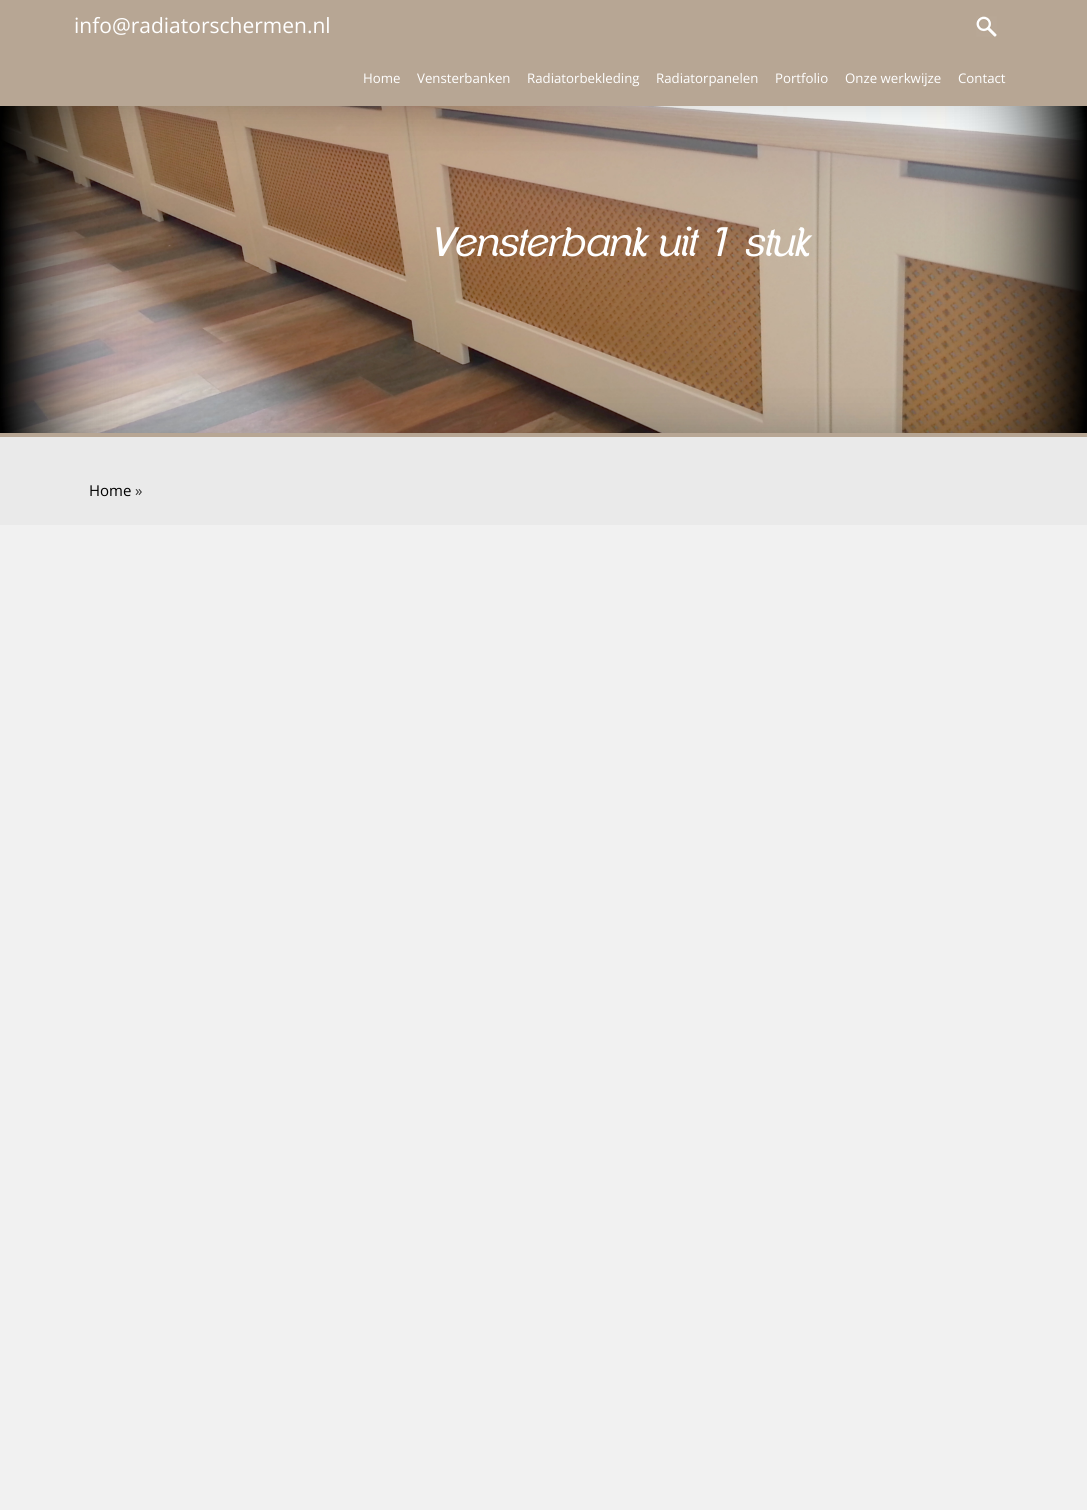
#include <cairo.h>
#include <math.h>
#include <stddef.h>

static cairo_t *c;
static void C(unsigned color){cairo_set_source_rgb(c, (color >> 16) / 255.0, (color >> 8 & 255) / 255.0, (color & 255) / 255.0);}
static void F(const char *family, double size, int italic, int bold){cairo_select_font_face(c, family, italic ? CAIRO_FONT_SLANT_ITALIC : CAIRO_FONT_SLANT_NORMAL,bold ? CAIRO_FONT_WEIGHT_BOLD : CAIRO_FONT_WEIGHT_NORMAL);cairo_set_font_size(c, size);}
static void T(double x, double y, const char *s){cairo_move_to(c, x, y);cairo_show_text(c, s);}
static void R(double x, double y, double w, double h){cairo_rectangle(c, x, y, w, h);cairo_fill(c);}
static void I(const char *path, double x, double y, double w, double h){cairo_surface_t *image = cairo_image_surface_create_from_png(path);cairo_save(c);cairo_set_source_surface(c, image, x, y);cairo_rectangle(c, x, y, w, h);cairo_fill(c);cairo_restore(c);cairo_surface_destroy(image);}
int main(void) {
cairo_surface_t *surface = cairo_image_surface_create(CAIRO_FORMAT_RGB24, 1087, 1510);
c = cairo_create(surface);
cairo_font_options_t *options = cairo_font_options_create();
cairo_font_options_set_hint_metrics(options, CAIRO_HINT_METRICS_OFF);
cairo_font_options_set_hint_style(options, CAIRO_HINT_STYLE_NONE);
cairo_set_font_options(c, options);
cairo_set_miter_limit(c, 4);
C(0xf1f1f1);
cairo_paint(c);
C(0xb7a694);
R(0,0,1087,106);
F("Open Sans",21,0,0);
C(0xffffff);
T(74,33,"info@radiatorschermen.nl");
I("1.png",976,16,21,21);
F("Open Sans",13.25,0,0);
T(363,83,"Home");
T(417,83,"Vensterbanken");
T(527,83,"Radiatorbekleding");
T(656,83,"Radiatorpanelen");
T(775,83,"Portfolio");
T(845,83,"Onze werkwijze");
T(958,83,"Contact");
I("2.png",0,106,1087,327);
C(0xb7a694);
R(0,433,1087,4);
F("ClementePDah",40,1,0);
C(0xffffff);
T(433,256,"Vensterbank uit 1 stuk");
C(0xeaeaea);
R(0,437,1087,88);
F("Open Sans",15,0,0);
C(0x000000);
T(89,496,"Home");
C(0x333333);
T(135,496,"»");
cairo_surface_write_to_png(surface, "o.png");
cairo_font_options_destroy(options);
cairo_destroy(c);
cairo_surface_destroy(surface);
return 0;
}
